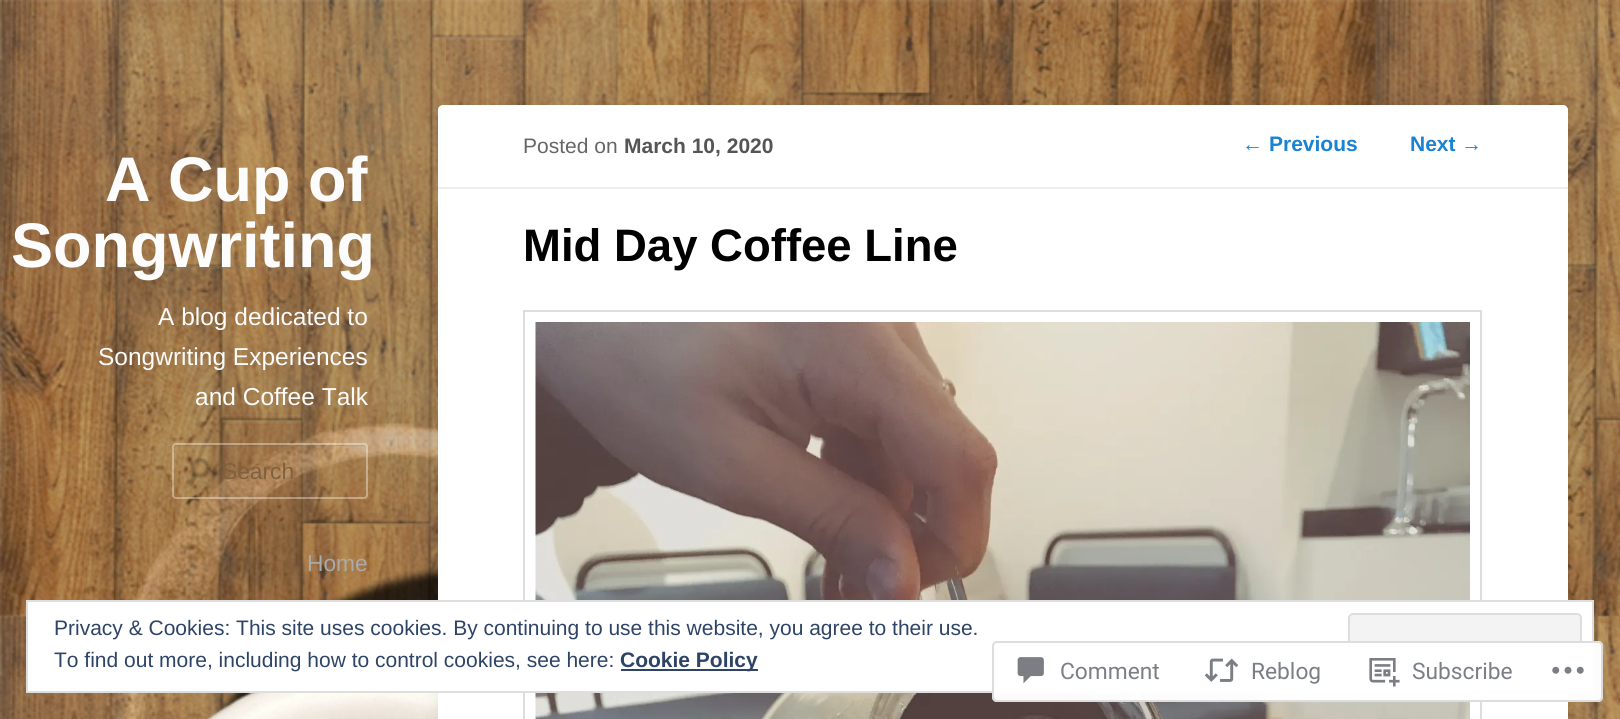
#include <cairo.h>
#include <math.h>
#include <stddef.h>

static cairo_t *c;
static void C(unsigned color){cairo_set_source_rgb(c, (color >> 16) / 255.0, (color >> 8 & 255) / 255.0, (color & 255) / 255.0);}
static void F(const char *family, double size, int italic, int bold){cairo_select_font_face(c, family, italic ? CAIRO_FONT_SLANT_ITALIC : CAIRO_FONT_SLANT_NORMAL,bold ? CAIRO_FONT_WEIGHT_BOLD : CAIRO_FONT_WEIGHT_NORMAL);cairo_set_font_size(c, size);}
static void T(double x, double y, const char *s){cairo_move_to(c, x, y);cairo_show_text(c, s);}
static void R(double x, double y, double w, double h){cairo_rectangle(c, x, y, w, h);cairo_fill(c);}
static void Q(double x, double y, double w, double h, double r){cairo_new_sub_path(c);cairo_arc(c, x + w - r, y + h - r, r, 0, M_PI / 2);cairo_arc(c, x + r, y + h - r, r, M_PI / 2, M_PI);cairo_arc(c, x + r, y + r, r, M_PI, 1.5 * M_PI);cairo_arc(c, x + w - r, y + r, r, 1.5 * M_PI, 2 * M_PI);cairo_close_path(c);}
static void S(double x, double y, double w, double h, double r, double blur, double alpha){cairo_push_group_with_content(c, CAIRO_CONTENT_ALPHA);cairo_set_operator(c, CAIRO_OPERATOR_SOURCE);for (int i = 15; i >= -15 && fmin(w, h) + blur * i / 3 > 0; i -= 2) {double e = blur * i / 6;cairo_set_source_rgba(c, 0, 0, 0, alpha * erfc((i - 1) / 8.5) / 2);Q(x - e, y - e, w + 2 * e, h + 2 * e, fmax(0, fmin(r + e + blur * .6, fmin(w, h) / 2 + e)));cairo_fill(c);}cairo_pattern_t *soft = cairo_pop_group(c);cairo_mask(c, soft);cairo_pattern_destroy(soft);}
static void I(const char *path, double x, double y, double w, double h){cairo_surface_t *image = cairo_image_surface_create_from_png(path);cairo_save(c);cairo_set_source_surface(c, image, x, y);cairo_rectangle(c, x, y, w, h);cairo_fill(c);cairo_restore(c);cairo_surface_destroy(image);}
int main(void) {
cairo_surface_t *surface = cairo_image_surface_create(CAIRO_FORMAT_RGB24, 1620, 719);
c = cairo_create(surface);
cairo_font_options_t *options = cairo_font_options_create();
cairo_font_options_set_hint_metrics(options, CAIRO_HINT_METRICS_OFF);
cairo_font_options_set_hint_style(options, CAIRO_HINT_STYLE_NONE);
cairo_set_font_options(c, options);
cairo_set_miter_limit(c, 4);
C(0xffffff);
cairo_paint(c);
I("1.png",0,0,1620,719);
F("Liberation Sans",63,0,1);
C(0xfcfcfc);
T(105,201,"A Cup of");
T(11,267,"Songwriting");
F("Liberation Sans",24.5,0,0);
T(158,325,"A blog dedicated to");
T(98,365,"Songwriting Experiences");
T(195,405,"and Coffee Talk");
I("2.png",187,457,24,30);
cairo_set_source_rgba(c,0,0,0,0.06);
cairo_new_path(c);
cairo_move_to(c,175,446);
cairo_line_to(c,364,446);
cairo_line_to(c,366,447);
cairo_line_to(c,366,448);
cairo_line_to(c,366,447);
cairo_curve_to(c,366,446,365,445,364,445);
cairo_line_to(c,175,445);
cairo_curve_to(c,174,445,173,446,173,447);
cairo_line_to(c,173,448);
cairo_curve_to(c,173,447,174,446,175,446);
cairo_close_path(c);
cairo_fill(c);
Q(173,444,194,54,3);
cairo_set_source_rgba(c,1,1,1,0.36);
cairo_stroke(c);
F("Liberation Sans",22.75,0,0);
C(0x7f603f);
T(222,479,"Search");
C(0xaaaaaa);
T(307,571,"Home");
C(0x000000);
S(438,105,1130,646,5,9,.1);
C(0xffffff);
Q(438,105,1130,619,5);
cairo_fill(c);
C(0xeeeeee);
R(438,187,1130,2);
F("Liberation Sans",21,0,0);
C(0x666666);
T(523,153,"Posted on");
F("Liberation Sans",21,0,1);
C(0x555555);
T(624,153,"March 10, 2020");
F("Liberation Sans",45.5,0,1);
C(0x000000);
T(523,261,"Mid Day Coffee Line");
cairo_rectangle(c,524,311,957,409);
C(0xdddddd);
cairo_stroke(c);
I("3.png",535,322,935,397);
F("Liberation Sans",21,0,0);
C(0x1982d1);
T(1242,151,"←");
F("Liberation Sans",21,0,1);
T(1269,151,"Previous");
T(1410,151,"Next");
F("Liberation Sans",21,0,0);
T(1461,151,"→");
C(0xffffff);
cairo_rectangle(c,27,601,1566,91);
cairo_fill_preserve(c);
C(0xdedede);
cairo_stroke(c);
C(0x2e4467);
T(54,635,"Privacy & Cookies: This site uses cookies. By continuing to use this website, you agree to their use.");
C(0xf3f3f3);
Q(1349,614,232,66,4);
cairo_fill_preserve(c);
C(0xdedede);
cairo_stroke(c);
C(0x2e4467);
T(54,667,"To find out more, including how to control cookies, see here:");
R(621,669,137,2);
F("Liberation Sans",21,0,1);
T(620,667,"Cookie Policy");
cairo_set_source_rgba(c,1,1,1,0.98);
Q(992,641,611,61,5);
cairo_fill(c);
Q(993,642,609,59,4);
cairo_set_source_rgba(c,0.863,0.863,0.871,0.98);
cairo_stroke(c);
I("4.png",1017,657,27,27);
F("Roboto",22.75,0,0);
C(0x7b7f85);
T(1060,679,"Comment");
I("5.png",1204,658,35,24);
T(1251,679,"Reblog");
I("6.png",1369,658,31,29);
T(1412,679,"Subscribe");
I("7.png",1552,666,32,8);
cairo_surface_write_to_png(surface, "o.png");
cairo_font_options_destroy(options);
cairo_destroy(c);
cairo_surface_destroy(surface);
return 0;
}
